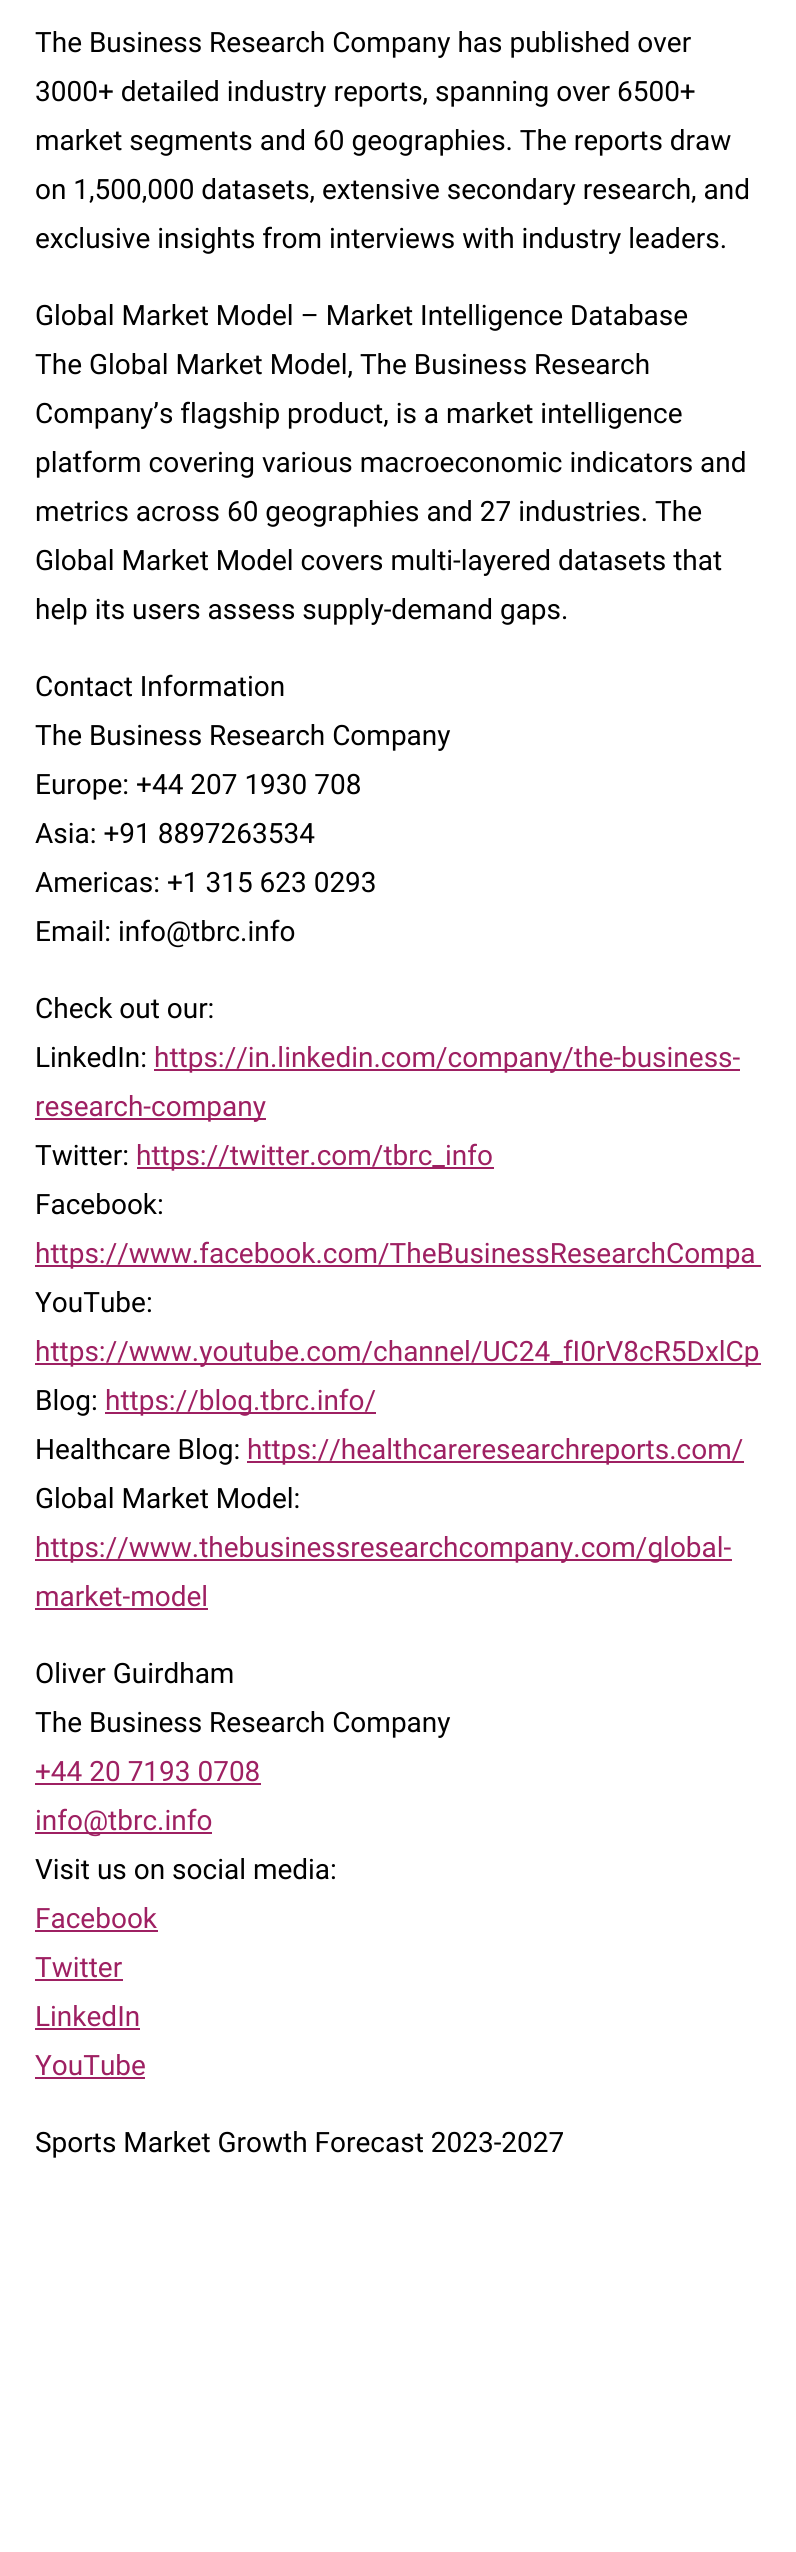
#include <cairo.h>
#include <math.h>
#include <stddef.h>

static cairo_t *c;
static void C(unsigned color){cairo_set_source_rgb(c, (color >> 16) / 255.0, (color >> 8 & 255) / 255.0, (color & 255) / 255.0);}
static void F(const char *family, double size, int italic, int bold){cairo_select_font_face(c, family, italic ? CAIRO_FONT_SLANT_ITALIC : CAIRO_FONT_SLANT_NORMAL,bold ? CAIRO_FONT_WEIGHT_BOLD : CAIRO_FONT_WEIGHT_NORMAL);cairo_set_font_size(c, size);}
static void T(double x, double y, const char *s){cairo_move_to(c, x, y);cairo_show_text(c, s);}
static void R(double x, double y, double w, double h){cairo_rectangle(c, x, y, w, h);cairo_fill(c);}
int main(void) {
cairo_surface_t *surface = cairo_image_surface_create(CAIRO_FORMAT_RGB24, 796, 2552);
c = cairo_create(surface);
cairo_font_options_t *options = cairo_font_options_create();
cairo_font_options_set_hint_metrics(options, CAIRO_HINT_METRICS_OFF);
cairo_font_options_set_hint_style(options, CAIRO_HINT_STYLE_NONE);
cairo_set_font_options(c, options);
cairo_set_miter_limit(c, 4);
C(0xffffff);
cairo_paint(c);
F("Roboto",28,0,0);
C(0x000000);
T(35,52,"The Business Research Company has published over");
T(35,101,"3000+ detailed industry reports, spanning over 6500+");
T(35,150,"market segments and 60 geographies. The reports draw");
T(35,199,"on 1,500,000 datasets, extensive secondary research, and");
T(35,248,"exclusive insights from interviews with industry leaders.");
T(35,325,"Global Market Model – Market Intelligence Database");
T(35,374,"The Global Market Model, The Business Research");
T(35,423,"Company’s flagship product, is a market intelligence");
T(35,472,"platform covering various macroeconomic indicators and");
T(35,521,"metrics across 60 geographies and 27 industries. The");
T(35,570,"Global Market Model covers multi-layered datasets that");
T(35,619,"help its users assess supply-demand gaps.");
T(35,696,"Contact Information");
T(35,745,"The Business Research Company");
T(35,794,"Europe: +44 207 1930 708");
T(35,843,"Asia: +91 8897263534");
T(35,892,"Americas: +1 315 623 0293");
T(35,941,"Email: info@tbrc.info");
T(35,1018,"Check out our:");
T(35,1067,"LinkedIn:");
C(0x9e2062);
R(154,1069,586,2);
T(154,1067,"https://in.linkedin.com/company/the-business-");
R(35,1118,231,2);
T(35,1116,"research-company");
C(0x000000);
T(35,1165,"Twitter:");
C(0x9e2062);
R(137,1167,357,2);
T(136,1165,"https://twitter.com/tbrc_info");
C(0x000000);
T(35,1214,"Facebook:");
C(0x9e2062);
R(35,1265,726,2);
T(35,1263,"https://www.facebook.com/TheBusinessResearchCompa");
C(0x000000);
T(35,1312,"YouTube:");
C(0x9e2062);
R(35,1363,726,2);
T(35,1361,"https://www.youtube.com/channel/UC24_fI0rV8cR5DxlCp");
C(0x000000);
T(35,1410,"Blog:");
C(0x9e2062);
R(105,1412,271,2);
T(105,1410,"https://blog.tbrc.info/");
C(0x000000);
T(35,1459,"Healthcare Blog:");
C(0x9e2062);
R(247,1461,497,2);
T(247,1459,"https://healthcareresearchreports.com/");
C(0x000000);
T(35,1508,"Global Market Model:");
C(0x9e2062);
R(35,1559,697,2);
T(35,1557,"https://www.thebusinessresearchcompany.com/global-");
T(35,1606,"market-model");
R(35,1608,173,2);
C(0x000000);
T(35,1683,"Oliver Guirdham");
T(35,1732,"The Business Research Company");
C(0x9e2062);
T(35,1781,"+44 20 7193 0708");
R(35,1783,226,2);
R(35,1832,177,2);
T(35,1830,"info@tbrc.info");
C(0x000000);
T(35,1879,"Visit us on social media:");
C(0x9e2062);
T(35,1928,"Facebook");
R(35,1930,123,2);
T(35,1977,"Twitter");
R(35,1979,88,2);
T(35,2026,"LinkedIn");
R(35,2028,105,2);
T(35,2075,"YouTube");
R(35,2077,110,2);
C(0x000000);
T(35,2152,"Sports Market Growth Forecast 2023-2027");
cairo_surface_write_to_png(surface, "o.png");
cairo_font_options_destroy(options);
cairo_destroy(c);
cairo_surface_destroy(surface);
return 0;
}
